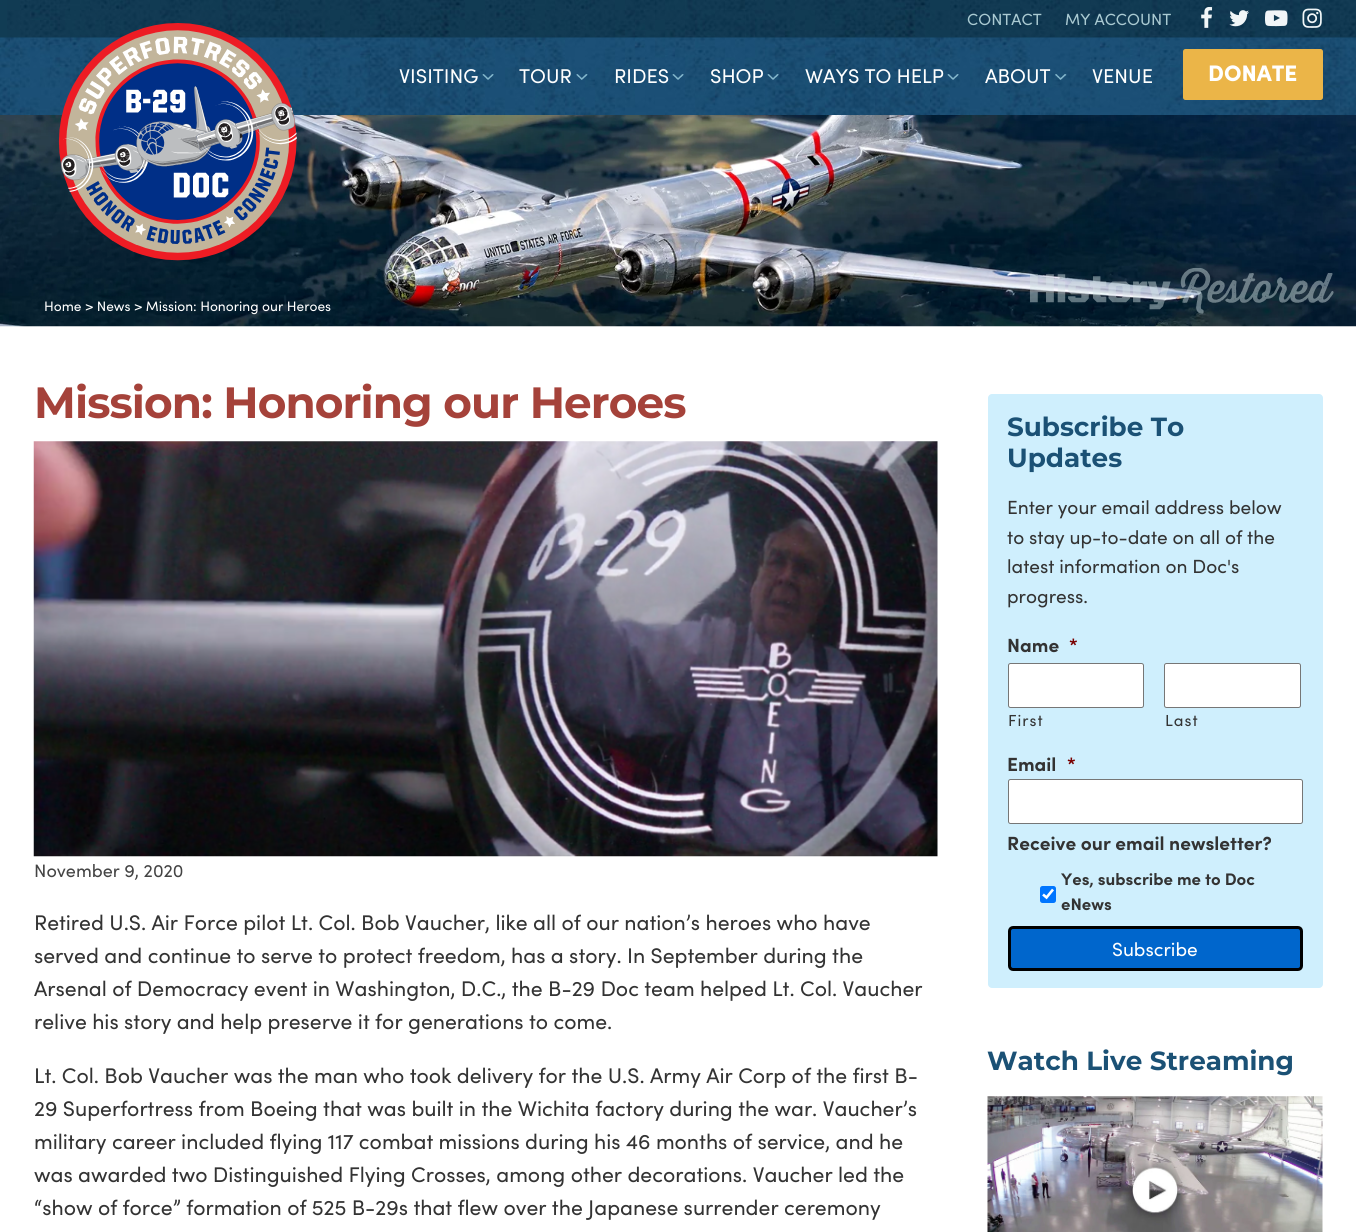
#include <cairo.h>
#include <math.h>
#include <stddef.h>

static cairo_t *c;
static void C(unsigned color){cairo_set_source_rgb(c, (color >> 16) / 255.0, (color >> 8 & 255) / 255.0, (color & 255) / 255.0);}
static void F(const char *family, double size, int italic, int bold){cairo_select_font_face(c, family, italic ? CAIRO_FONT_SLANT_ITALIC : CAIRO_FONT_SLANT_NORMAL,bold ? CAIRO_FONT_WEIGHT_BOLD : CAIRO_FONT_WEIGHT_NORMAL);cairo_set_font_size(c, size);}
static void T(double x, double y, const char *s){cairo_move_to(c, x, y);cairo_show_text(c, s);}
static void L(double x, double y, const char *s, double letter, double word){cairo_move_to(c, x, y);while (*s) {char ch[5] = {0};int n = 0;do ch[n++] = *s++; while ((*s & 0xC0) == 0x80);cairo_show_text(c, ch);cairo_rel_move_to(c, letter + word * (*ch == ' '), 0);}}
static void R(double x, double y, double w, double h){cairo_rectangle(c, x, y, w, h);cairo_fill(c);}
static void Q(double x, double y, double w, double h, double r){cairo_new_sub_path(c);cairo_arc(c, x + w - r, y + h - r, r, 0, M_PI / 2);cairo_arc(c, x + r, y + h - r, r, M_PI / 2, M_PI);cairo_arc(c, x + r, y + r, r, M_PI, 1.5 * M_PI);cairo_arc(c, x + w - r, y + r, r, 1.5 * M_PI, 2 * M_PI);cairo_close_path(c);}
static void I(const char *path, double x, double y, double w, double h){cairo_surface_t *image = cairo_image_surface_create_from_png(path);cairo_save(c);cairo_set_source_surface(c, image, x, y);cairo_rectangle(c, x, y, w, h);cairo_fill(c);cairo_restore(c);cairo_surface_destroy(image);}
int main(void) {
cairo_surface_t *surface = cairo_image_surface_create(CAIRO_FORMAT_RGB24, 1356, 1232);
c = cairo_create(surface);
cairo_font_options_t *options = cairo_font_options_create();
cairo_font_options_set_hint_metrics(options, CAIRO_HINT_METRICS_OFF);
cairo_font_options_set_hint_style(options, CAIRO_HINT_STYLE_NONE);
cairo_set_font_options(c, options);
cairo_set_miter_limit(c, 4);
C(0xffffff);
cairo_paint(c);
C(0x113c54);
R(0,0,1356,38);
I("1.png",7,0,1349,38);
F("Sofia",16.25,0,0);
C(0xaacad2);
T(967,25,"CONTACT");
T(1065,25,"MY ACCOUNT");
I("2.png",1201,7,12,21);
I("3.png",1229,10,20,17);
I("4.png",1265,10,23,17);
I("5.png",1302,8,20,20);
I("6.png",0,37,1356,78);
I("14.png",0,115,1356,212);
I("7.png",58,23,239,238);
I("8.png",482,74,12,6);
F("Sofia",20,0,0);
C(0xffffff);
T(399,83,"VISITING");
I("9.png",576,74,12,6);
T(519,83,"TOUR");
I("10.png",672,74,12,6);
T(614,83,"RIDES");
I("11.png",767,74,12,6);
T(710,83,"SHOP");
I("12.png",947,74,12,6);
T(805,83,"WAYS TO HELP");
I("13.png",1055,74,12,6);
T(985,83,"ABOUT");
T(1092,83,"VENUE");
C(0xebb548);
Q(1183,49,140,51,2.5);
cairo_fill(c);
F("Sofia Black",22.5,0,0);
C(0xffffff);
T(1208,81,"DONATE");
F("Sofia",13.75,0,0);
T(44,311,"Home > News > Mission: Honoring our Heroes");
I("15.png",1030,268,304,46);
F("Montserrat",43.75,0,1);
C(0xa5423a);
L(34,418,"Mission: Honoring our Heroes",-.9,0);
I("16.png",33,441,905,416);
F("Sofia",18,0,0);
C(0x444444);
T(34,877,"November 9, 2020");
F("Sofia",21.25,0,0);
C(0x333333);
T(34,930,"Retired U.S. Air Force pilot Lt. Col. Bob Vaucher, like all of our nation’s heroes who have");
T(34,963,"served and continue to serve to protect freedom, has a story. In September during the");
T(34,996,"Arsenal of Democracy event in Washington, D.C., the B-29 Doc team helped Lt. Col. Vaucher");
T(34,1029,"relive his story and help preserve it for generations to come.");
T(34,1083,"Lt. Col. Bob Vaucher was the man who took delivery for the U.S. Army Air Corp of the first B-");
T(34,1116,"29 Superfortress from Boeing that was built in the Wichita factory during the war. Vaucher’s");
T(34,1149,"military career included flying 117 combat missions during his 46 months of service, and he");
T(34,1182,"was awarded two Distinguished Flying Crosses, among other decorations. Vaucher led the");
T(34,1215,"“show of force” formation of 525 B-29s that flew over the Japanese surrender ceremony");
C(0xcfeffd);
Q(988,394,335,594,4);
cairo_fill(c);
F("Montserrat",26.25,0,1);
C(0x1b5175);
T(1007,436,"Subscribe To");
T(1007,467,"Updates");
F("Sofia",19.1,0,0);
C(0x333333);
T(1007,514,"Enter your email address below");
T(1007,544,"to stay up-to-date on all of the");
T(1007,573,"latest information on Doc's");
T(1007,603,"progress.");
F("Sofia",19.1,0,1);
T(1007,652,"Name");
C(0x790000);
T(1069,652,"*");
C(0xffffff);
Q(1008.5,663.5,135,44,2);
cairo_fill_preserve(c);
C(0x767676);
cairo_set_line_width(c,1);
cairo_stroke(c);
F("Sofia",16,0,0);
C(0x333333);
L(1008,726,"First",1,0);
C(0xffffff);
Q(1164.5,663.5,136,44,2);
cairo_fill_preserve(c);
C(0x767676);
cairo_stroke(c);
C(0x333333);
L(1165,726,"Last",1,0);
F("Sofia",19.1,0,1);
T(1007,771,"Email");
C(0x790000);
T(1067,771,"*");
C(0xffffff);
Q(1008.5,779.5,294,44,2);
cairo_fill_preserve(c);
C(0x767676);
cairo_stroke(c);
C(0x333333);
T(1007,850,"Receive our email newsletter?");
C(0x0075ff);
Q(1040,886,16,17,2.5);
cairo_fill(c);
cairo_new_path(c);
cairo_move_to(c,1043,894.5);
cairo_line_to(c,1046.5,897.5);
cairo_line_to(c,1053,889.5);
C(0xffffff);
cairo_set_line_width(c,2.6);
cairo_stroke(c);
F("Sofia",16.75,0,1);
C(0x333333);
T(1061,885,"Yes, subscribe me to Doc");
T(1061,910,"eNews");
C(0x0066cc);
Q(1009.5,927.5,292,42,3.5);
cairo_fill_preserve(c);
C(0x000000);
cairo_set_line_width(c,3);
cairo_stroke(c);
F("Sofia",19.1,0,0);
C(0xffffff);
T(1112,956,"Subscribe");
F("Montserrat",26.25,0,1);
C(0x1b5175);
T(987,1070,"Watch Live Streaming");
I("17.png",987,1096,336,136);
cairo_surface_write_to_png(surface, "o.png");
cairo_font_options_destroy(options);
cairo_destroy(c);
cairo_surface_destroy(surface);
return 0;
}
